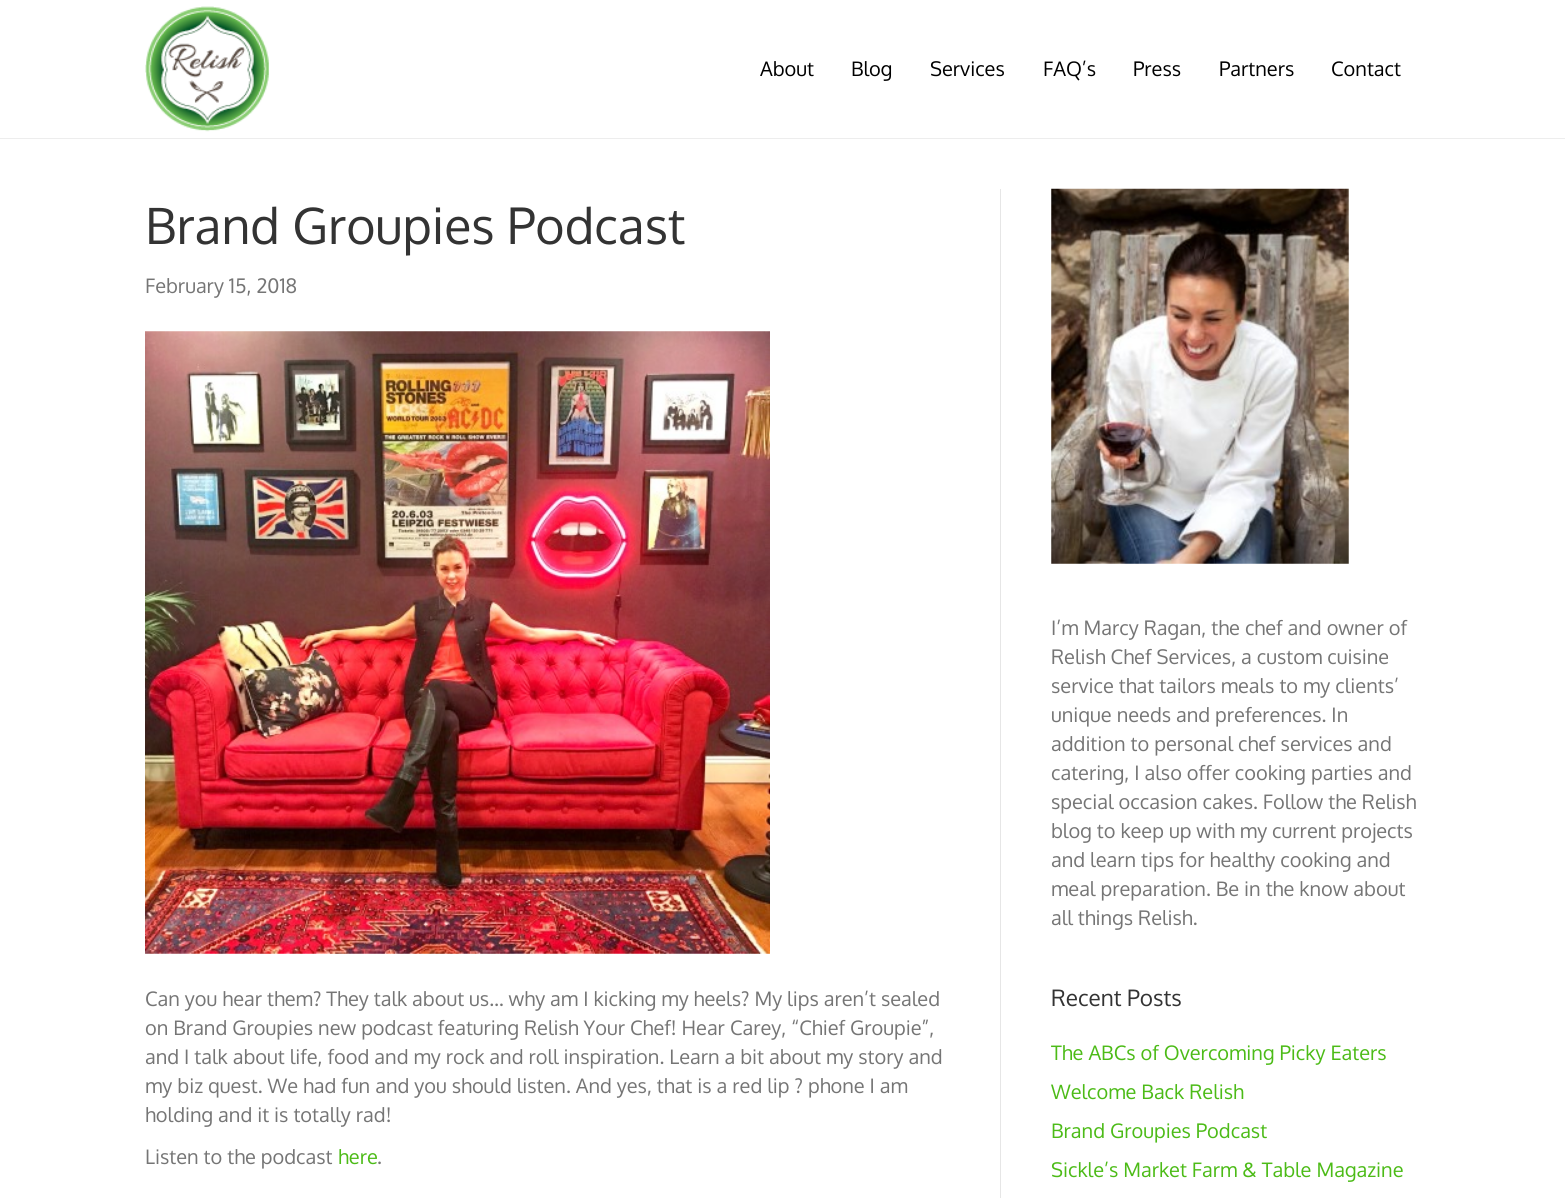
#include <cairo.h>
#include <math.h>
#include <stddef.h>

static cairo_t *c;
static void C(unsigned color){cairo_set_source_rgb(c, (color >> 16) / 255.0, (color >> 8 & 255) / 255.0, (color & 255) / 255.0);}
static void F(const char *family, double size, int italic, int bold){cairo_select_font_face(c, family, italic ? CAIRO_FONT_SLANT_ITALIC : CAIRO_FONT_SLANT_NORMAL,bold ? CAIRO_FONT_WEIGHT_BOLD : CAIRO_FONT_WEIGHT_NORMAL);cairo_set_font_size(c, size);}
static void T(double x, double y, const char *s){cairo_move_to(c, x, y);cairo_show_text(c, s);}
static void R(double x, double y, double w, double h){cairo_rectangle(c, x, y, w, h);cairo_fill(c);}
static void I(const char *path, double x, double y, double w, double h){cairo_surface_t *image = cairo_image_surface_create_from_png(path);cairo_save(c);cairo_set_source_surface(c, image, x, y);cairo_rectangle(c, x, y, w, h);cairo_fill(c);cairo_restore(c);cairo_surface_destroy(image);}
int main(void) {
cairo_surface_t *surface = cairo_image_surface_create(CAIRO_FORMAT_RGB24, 1565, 1198);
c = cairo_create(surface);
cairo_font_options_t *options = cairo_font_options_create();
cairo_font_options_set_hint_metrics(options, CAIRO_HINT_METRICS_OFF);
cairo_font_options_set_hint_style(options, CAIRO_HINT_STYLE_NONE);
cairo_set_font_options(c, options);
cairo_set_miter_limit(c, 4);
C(0xffffff);
cairo_paint(c);
C(0xededed);
R(0,138,1565,1);
I("1.png",145,6,124,126);
F("Oxygen",20,0,0);
C(0x000000);
T(760,76,"About");
T(851,76,"Blog");
T(930,76,"Services");
T(1043,76,"FAQ’s");
T(1133,76,"Press");
T(1219,76,"Partners");
T(1331,76,"Contact");
C(0xe6e6e6);
R(1000,189,1,1009);
F("Oxygen",50,0,0);
C(0x333333);
T(145,244,"Brand Groupies Podcast");
F("Oxygen",20,0,0);
C(0x757575);
T(145,293,"February 15, 2018");
I("2.png",145,331,625,623);
T(145,1006,"Can you hear them? They talk about us… why am I kicking my heels? My lips aren’t sealed");
T(145,1035,"on Brand Groupies new podcast featuring Relish Your Chef! Hear Carey, “Chief Groupie”,");
T(145,1064,"and I talk about life, food and my rock and roll inspiration. Learn a bit about my story and");
T(145,1093,"my biz quest. We had fun and you should listen. And yes, that is a red lip ? phone I am");
T(145,1122,"holding and it is totally rad!");
T(145,1164,"Listen to the podcast");
C(0x4cbb17);
T(338,1164,"here");
C(0x757575);
T(377,1164,".");
I("3.png",1051,188,298,376);
T(1051,635,"I’m Marcy Ragan, the chef and owner of");
T(1051,664,"Relish Chef Services, a custom cuisine");
T(1051,693,"service that tailors meals to my clients’");
T(1051,722,"unique needs and preferences. In");
T(1051,751,"addition to personal chef services and");
T(1051,780,"catering, I also offer cooking parties and");
T(1051,809,"special occasion cakes. Follow the Relish");
T(1051,838,"blog to keep up with my current projects");
T(1051,867,"and learn tips for healthy cooking and");
T(1051,896,"meal preparation. Be in the know about");
T(1051,925,"all things Relish.");
F("Oxygen",22.5,0,0);
C(0x333333);
T(1051,1006,"Recent Posts");
F("Oxygen",20,0,0);
C(0x4cbb17);
T(1051,1060,"The ABCs of Overcoming Picky Eaters");
T(1051,1099,"Welcome Back Relish");
T(1051,1138,"Brand Groupies Podcast");
T(1051,1177,"Sickle’s Market Farm & Table Magazine");
cairo_surface_write_to_png(surface, "o.png");
cairo_font_options_destroy(options);
cairo_destroy(c);
cairo_surface_destroy(surface);
return 0;
}
